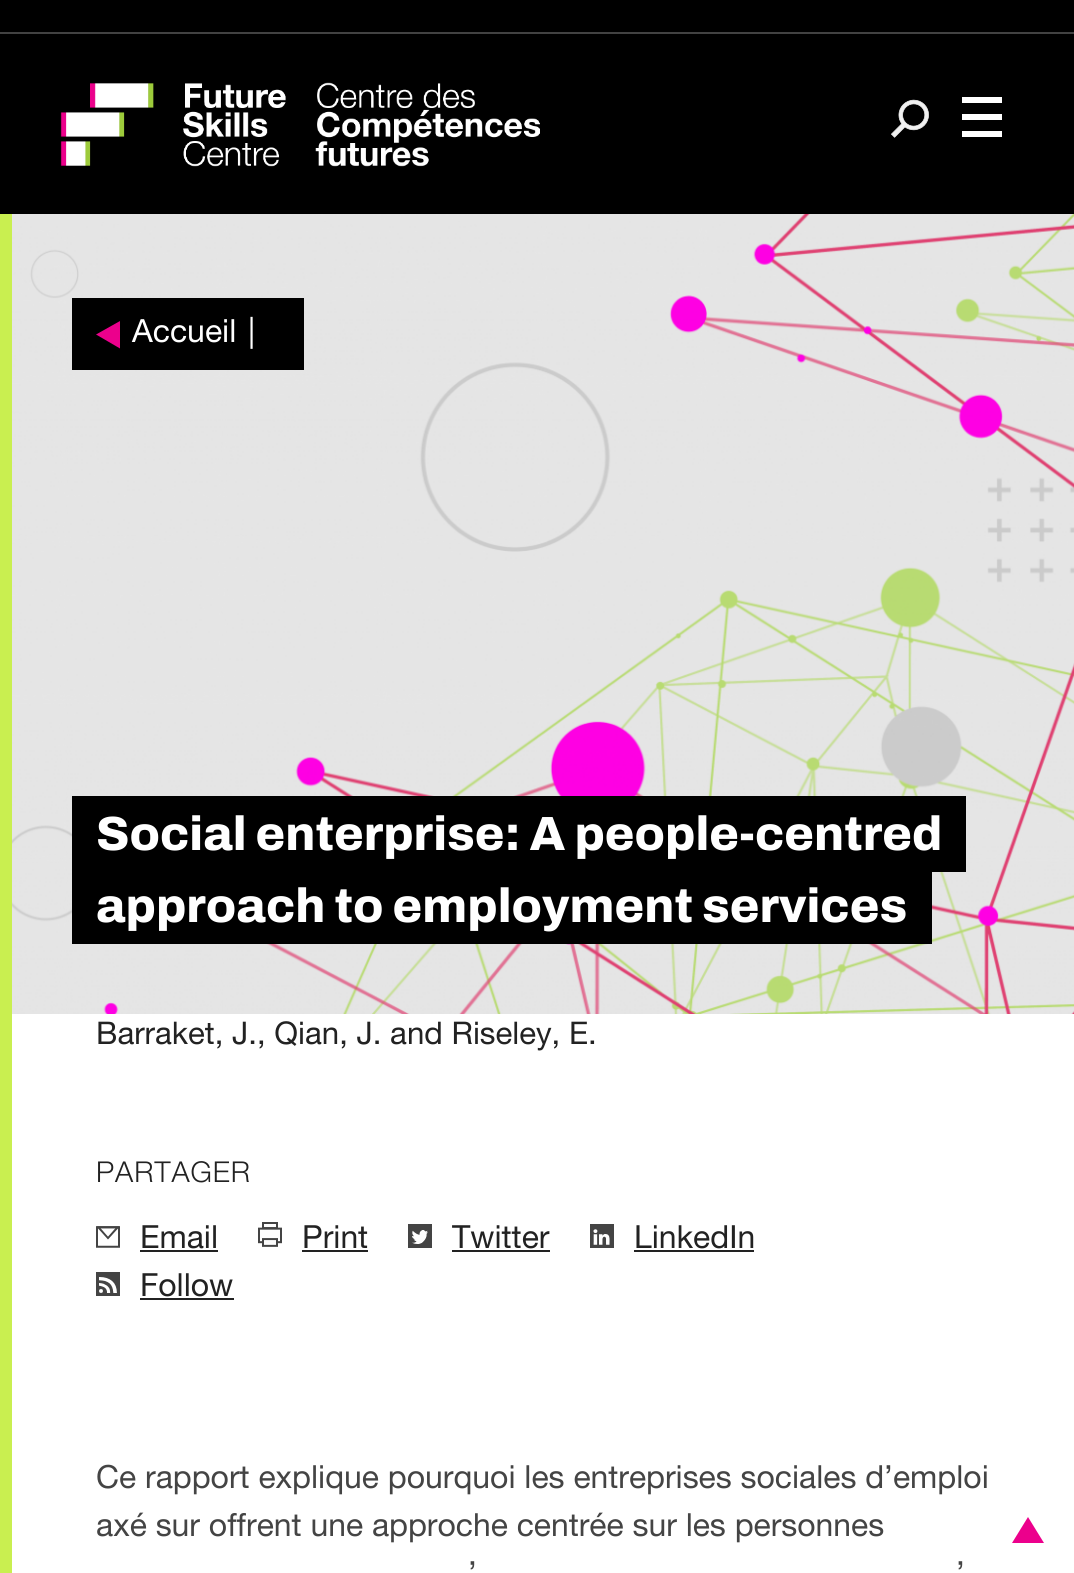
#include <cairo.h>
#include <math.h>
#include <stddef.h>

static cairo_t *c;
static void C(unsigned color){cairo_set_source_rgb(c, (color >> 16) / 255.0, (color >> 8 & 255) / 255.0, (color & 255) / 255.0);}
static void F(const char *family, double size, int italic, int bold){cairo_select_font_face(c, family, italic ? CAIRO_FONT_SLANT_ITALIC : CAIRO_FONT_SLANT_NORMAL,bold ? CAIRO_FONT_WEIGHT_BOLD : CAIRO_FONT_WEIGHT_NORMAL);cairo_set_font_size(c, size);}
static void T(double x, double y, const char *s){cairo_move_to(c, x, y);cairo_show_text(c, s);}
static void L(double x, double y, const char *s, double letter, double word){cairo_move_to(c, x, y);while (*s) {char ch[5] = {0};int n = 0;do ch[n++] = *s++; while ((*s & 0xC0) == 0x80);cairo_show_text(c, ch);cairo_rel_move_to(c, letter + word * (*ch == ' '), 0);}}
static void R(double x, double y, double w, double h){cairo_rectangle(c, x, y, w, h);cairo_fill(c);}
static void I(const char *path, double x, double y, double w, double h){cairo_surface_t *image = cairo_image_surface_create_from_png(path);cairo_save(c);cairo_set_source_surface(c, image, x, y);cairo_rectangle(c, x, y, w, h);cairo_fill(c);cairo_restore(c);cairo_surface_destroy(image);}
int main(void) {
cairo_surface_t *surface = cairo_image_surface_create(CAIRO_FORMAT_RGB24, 1074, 1573);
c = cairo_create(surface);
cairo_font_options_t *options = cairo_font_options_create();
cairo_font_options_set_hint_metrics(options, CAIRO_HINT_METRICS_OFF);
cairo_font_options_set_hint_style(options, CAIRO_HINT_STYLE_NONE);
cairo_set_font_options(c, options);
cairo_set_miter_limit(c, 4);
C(0xffffff);
cairo_paint(c);
C(0x000000);
R(0,0,1074,214);
C(0x424242);
R(0,32,1074,2);
I("1.png",60,82,480,85);
I("2.png",891,99,38,39);
C(0xffffff);
cairo_set_fill_rule(c,CAIRO_FILL_RULE_EVEN_ODD);
cairo_new_path(c);
cairo_move_to(c,1002,97);
cairo_line_to(c,1002,103);
cairo_line_to(c,962,103);
cairo_line_to(c,962,97);
cairo_close_path(c);
cairo_move_to(c,1002,114);
cairo_line_to(c,962,114);
cairo_line_to(c,962,120);
cairo_line_to(c,1002,120);
cairo_close_path(c);
cairo_move_to(c,1002,131);
cairo_line_to(c,962,131);
cairo_line_to(c,962,137);
cairo_line_to(c,1002,137);
cairo_close_path(c);
cairo_fill(c);
I("3.png",12,214,1062,800);
C(0x000000);
R(72,298,24,72);
R(96,298,208,72);
C(0xec008c);
cairo_new_path(c);
cairo_move_to(c,96,334.5);
cairo_line_to(c,120,321);
cairo_line_to(c,120,348.5);
cairo_close_path(c);
cairo_fill(c);
F("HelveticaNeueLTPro",32,0,0);
C(0xffffff);
T(132,342,"Accueil");
T(248,342,"|");
C(0x000000);
R(96,796,870,76);
F("Archivo ExtraBold",48,0,0);
C(0xffffff);
T(96,850,"Social enterprise: A people-centred");
C(0x000000);
R(72,796,24,148);
R(96,872,836,72);
C(0xffffff);
T(96,922,"approach to employment services");
C(0xc9ef50);
R(0,214,12,1359);
F("HelveticaNeueLTPro",31.25,0,0);
C(0x222222);
T(96,1044,"Barraket, J., Qian, J. and Riseley, E.");
F("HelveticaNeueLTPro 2",28.75,0,0);
L(96,1182,"PARTAGER",1,0);
I("4.png",96,1226,24,22);
F("HelveticaNeueLTPro",31.9,0,0);
T(140,1248,"Email");
R(140,1250,78,2);
I("5.png",258,1222,24,25);
T(302,1248,"Print");
R(302,1250,66,2);
I("6.png",408,1224,24,24);
T(452,1248,"Twitter");
R(452,1250,98,2);
I("7.png",590,1224,24,24);
T(634,1248,"LinkedIn");
R(634,1250,120,2);
I("8.png",96,1272,24,24);
T(140,1296,"Follow");
R(140,1298,94,2);
C(0x444444);
T(96,1488,"Ce rapport explique pourquoi les entreprises sociales d’emploi");
T(96,1536,"axé sur offrent une approche centrée sur les personnes");
T(468,1584,"’");
T(956,1584,"’");
C(0xec008c);
cairo_set_fill_rule(c,CAIRO_FILL_RULE_WINDING);
cairo_new_path(c);
cairo_move_to(c,1044,1543);
cairo_line_to(c,1012,1543);
cairo_line_to(c,1028,1517);
cairo_close_path(c);
cairo_fill(c);
cairo_surface_write_to_png(surface, "o.png");
cairo_font_options_destroy(options);
cairo_destroy(c);
cairo_surface_destroy(surface);
return 0;
}
